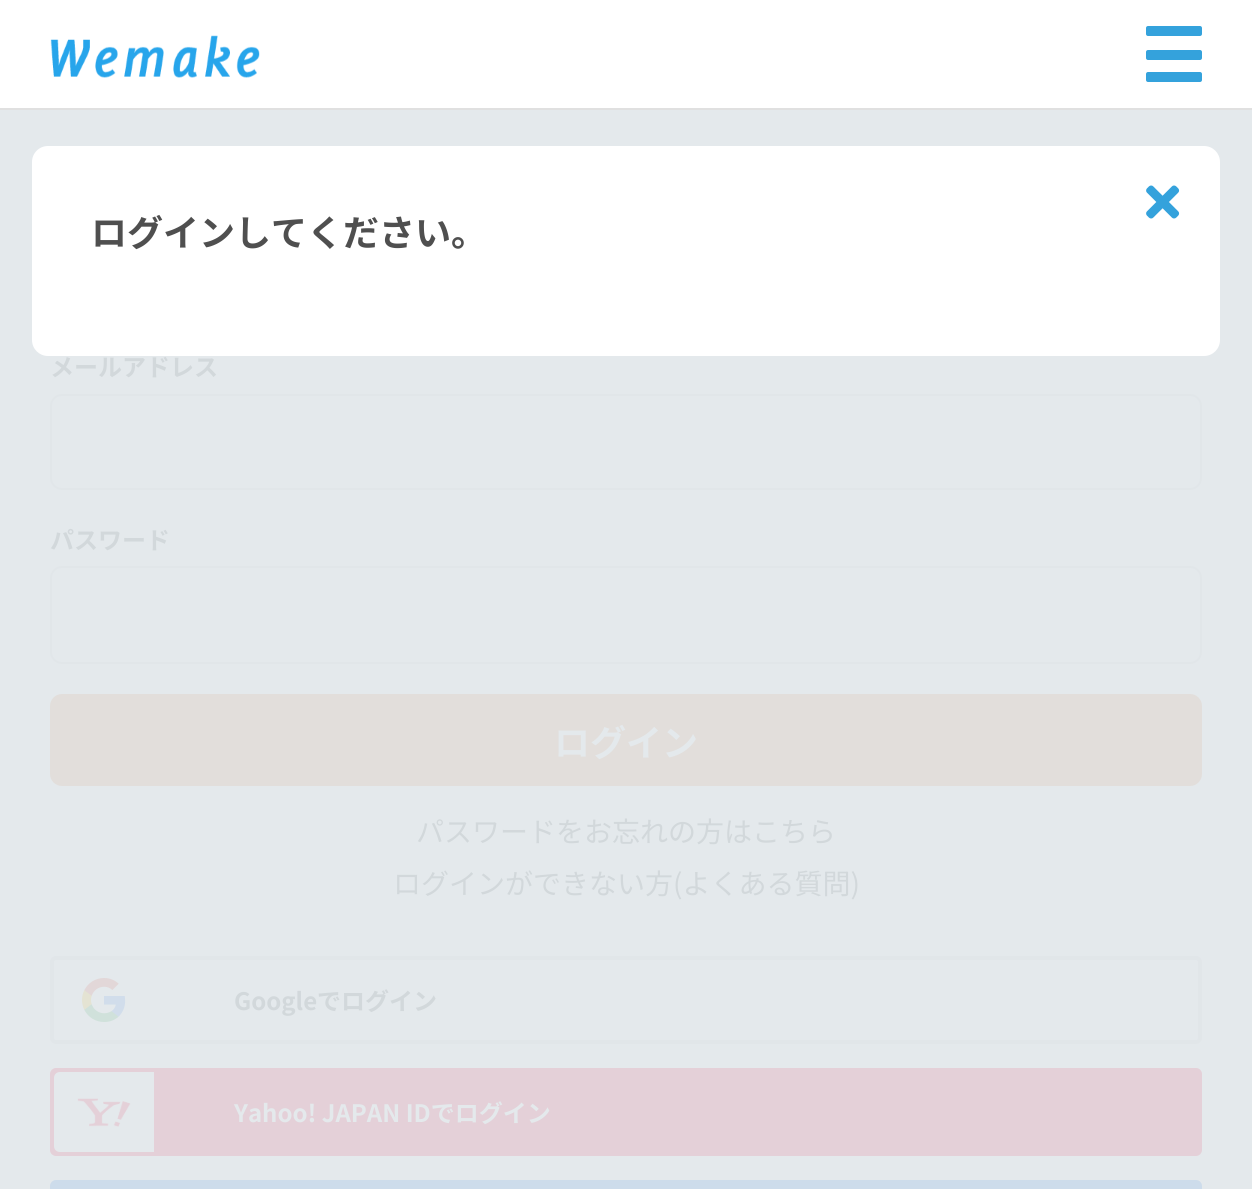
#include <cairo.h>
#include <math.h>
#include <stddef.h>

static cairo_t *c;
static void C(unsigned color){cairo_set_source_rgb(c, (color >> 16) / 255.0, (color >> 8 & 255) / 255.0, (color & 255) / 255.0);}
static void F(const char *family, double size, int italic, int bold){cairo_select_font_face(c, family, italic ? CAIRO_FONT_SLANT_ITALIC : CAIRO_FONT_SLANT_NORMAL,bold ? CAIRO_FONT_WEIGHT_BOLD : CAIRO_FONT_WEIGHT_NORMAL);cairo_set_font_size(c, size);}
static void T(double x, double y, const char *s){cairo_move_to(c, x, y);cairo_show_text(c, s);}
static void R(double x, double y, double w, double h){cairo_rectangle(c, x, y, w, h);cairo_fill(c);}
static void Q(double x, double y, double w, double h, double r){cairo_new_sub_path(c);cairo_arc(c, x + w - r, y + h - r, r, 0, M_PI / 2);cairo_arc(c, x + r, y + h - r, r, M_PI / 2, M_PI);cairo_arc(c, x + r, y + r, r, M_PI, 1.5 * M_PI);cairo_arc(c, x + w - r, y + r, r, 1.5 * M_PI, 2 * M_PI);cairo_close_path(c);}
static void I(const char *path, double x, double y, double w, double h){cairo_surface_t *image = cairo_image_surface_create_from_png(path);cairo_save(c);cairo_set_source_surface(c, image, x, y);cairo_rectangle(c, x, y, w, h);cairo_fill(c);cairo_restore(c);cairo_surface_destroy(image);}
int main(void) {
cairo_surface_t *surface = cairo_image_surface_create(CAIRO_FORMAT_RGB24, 1252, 1189);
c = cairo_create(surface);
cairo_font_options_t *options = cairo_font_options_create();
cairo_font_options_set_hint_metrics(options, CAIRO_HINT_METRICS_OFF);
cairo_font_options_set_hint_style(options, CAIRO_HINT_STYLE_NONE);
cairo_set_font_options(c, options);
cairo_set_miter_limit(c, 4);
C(0xffffff);
cairo_paint(c);
C(0xe4e9ec);
R(0,110,1252,1079);
C(0xe0e0e0);
R(0,108,1252,2);
I("1.png",50,35,210,43);
C(0x34a2dc);
Q(1146,26,56,10,2);
cairo_fill(c);
Q(1146,50,56,10,2);
cairo_fill(c);
Q(1146,72,56,10,2);
cairo_fill(c);
C(0xffffff);
Q(32,146,1188,210,16);
cairo_fill(c);
I("2.png",1146,185,34,34);
F("Noto Sans JP",36,0,1);
C(0x4f4f4f);
T(91,246,"ログインしてください。");
F("Noto Sans JP",24,0,1);
C(0xd2d8db);
T(50,376,"メールアドレス");
Q(51,395,1150,94,11);
C(0xe1e6e9);
cairo_stroke(c);
C(0xd2d8db);
T(50,549,"パスワード");
Q(51,567,1150,96,11);
C(0xe1e6e9);
cairo_stroke(c);
C(0xe2dedb);
Q(50,694,1152,92,12);
cairo_fill(c);
F("Noto Sans JP",36,0,1);
C(0xe4e9ec);
T(554,756,"ログイン");
F("Noto Sans JP",28,0,0);
C(0xd2d8db);
T(416,842,"パスワードをお忘れの方はこちら");
T(393,894,"ログインができない方(よくある質問)");
Q(52,958,1148,84,4);
C(0xe1e6e9);
cairo_set_line_width(c,4);
cairo_stroke(c);
I("3.png",82,978,44,44);
F("Noto Sans JP",24,0,1);
C(0xd2d8db);
T(234,1010,"Googleでログイン");
C(0xe4d0d8);
Q(52,1070,1148,84,4);
cairo_fill_preserve(c);
cairo_stroke(c);
C(0xe4e9ec);
cairo_new_path(c);
cairo_move_to(c,60,1072);
cairo_line_to(c,154,1072);
cairo_line_to(c,154,1152);
cairo_line_to(c,60,1152);
cairo_curve_to(c,56.5,1152,54,1149.5,54,1146);
cairo_line_to(c,54,1078);
cairo_curve_to(c,54,1074.5,56.5,1072,60,1072);
cairo_close_path(c);
cairo_fill(c);
I("4.png",77,1098,54,29);
T(234,1122,"Yahoo! JAPAN IDでログイン");
C(0xcddceb);
Q(52,1182,1148,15,4);
cairo_fill_preserve(c);
cairo_stroke(c);
cairo_surface_write_to_png(surface, "o.png");
cairo_font_options_destroy(options);
cairo_destroy(c);
cairo_surface_destroy(surface);
return 0;
}
